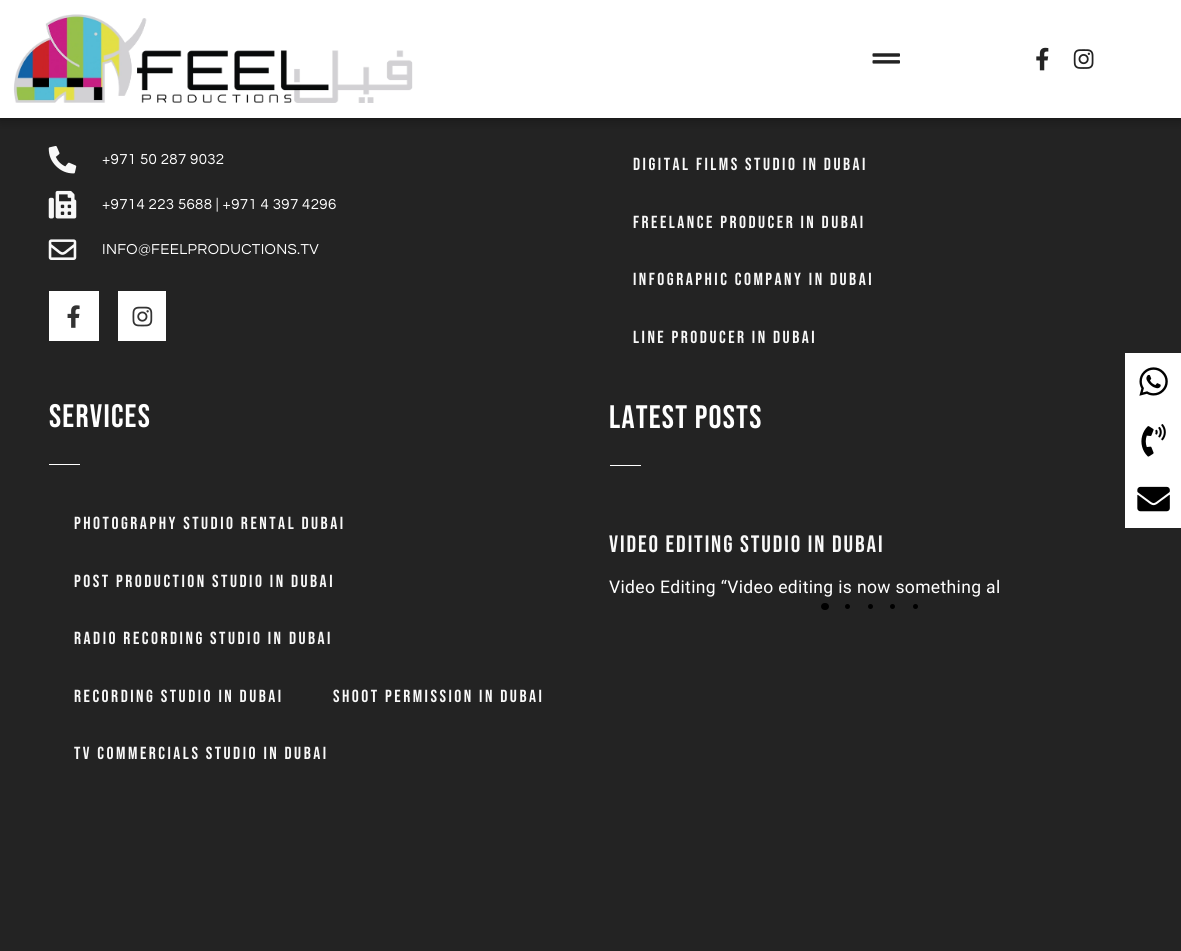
#include <cairo.h>
#include <math.h>
#include <stddef.h>

static cairo_t *c;
static void C(unsigned color){cairo_set_source_rgb(c, (color >> 16) / 255.0, (color >> 8 & 255) / 255.0, (color & 255) / 255.0);}
static void F(const char *family, double size, int italic, int bold){cairo_select_font_face(c, family, italic ? CAIRO_FONT_SLANT_ITALIC : CAIRO_FONT_SLANT_NORMAL,bold ? CAIRO_FONT_WEIGHT_BOLD : CAIRO_FONT_WEIGHT_NORMAL);cairo_set_font_size(c, size);}
static void L(double x, double y, const char *s, double letter, double word){cairo_move_to(c, x, y);while (*s) {char ch[5] = {0};int n = 0;do ch[n++] = *s++; while ((*s & 0xC0) == 0x80);cairo_show_text(c, ch);cairo_rel_move_to(c, letter + word * (*ch == ' '), 0);}}
static void R(double x, double y, double w, double h){cairo_rectangle(c, x, y, w, h);cairo_fill(c);}
static void Q(double x, double y, double w, double h, double r){cairo_new_sub_path(c);cairo_arc(c, x + w - r, y + h - r, r, 0, M_PI / 2);cairo_arc(c, x + r, y + h - r, r, M_PI / 2, M_PI);cairo_arc(c, x + r, y + r, r, M_PI, 1.5 * M_PI);cairo_arc(c, x + w - r, y + r, r, 1.5 * M_PI, 2 * M_PI);cairo_close_path(c);}
static void S(double x, double y, double w, double h, double r, double blur, double alpha){cairo_push_group_with_content(c, CAIRO_CONTENT_ALPHA);cairo_set_operator(c, CAIRO_OPERATOR_SOURCE);for (int i = 15; i >= -15 && fmin(w, h) + blur * i / 3 > 0; i -= 2) {double e = blur * i / 6;cairo_set_source_rgba(c, 0, 0, 0, alpha * erfc((i - 1) / 8.5) / 2);Q(x - e, y - e, w + 2 * e, h + 2 * e, fmax(0, fmin(r + e + blur * .6, fmin(w, h) / 2 + e)));cairo_fill(c);}cairo_pattern_t *soft = cairo_pop_group(c);cairo_mask(c, soft);cairo_pattern_destroy(soft);}
static void I(const char *path, double x, double y, double w, double h){cairo_surface_t *image = cairo_image_surface_create_from_png(path);cairo_save(c);cairo_set_source_surface(c, image, x, y);cairo_rectangle(c, x, y, w, h);cairo_fill(c);cairo_restore(c);cairo_surface_destroy(image);}
int main(void) {
cairo_surface_t *surface = cairo_image_surface_create(CAIRO_FORMAT_RGB24, 1181, 951);
c = cairo_create(surface);
cairo_font_options_t *options = cairo_font_options_create();
cairo_font_options_set_hint_metrics(options, CAIRO_HINT_METRICS_OFF);
cairo_font_options_set_hint_style(options, CAIRO_HINT_STYLE_NONE);
cairo_set_font_options(c, options);
cairo_set_miter_limit(c, 4);
C(0x232323);
cairo_paint(c);
C(0x000000);
S(0,0,1181,118,0,6,.5);
C(0xffffff);
R(0,0,1181,118);
I("1.png",13,14,400,89);
I("2.png",872,53,28,11);
I("3.png",1036,47,13,24);
I("4.png",1073,49,21,20);
I("5.png",48,146,29,28);
F("Questrial",15,0,0);
L(102,164,"+971 50 287 9032",.35,0);
I("6.png",48,190,29,29);
L(102,209,"+9714 223 5688 | +971 4 397 4296",.35,0);
I("7.png",48,239,29,21);
L(102,254,"INFO@FEELPRODUCTIONS.TV",.35,0);
R(49,291,50,50);
I("8.png",67,305,13,23);
R(118,291,48,50);
I("9.png",132,306,21,21);
F("Bebas Neue",17.5,0,0);
C(0xf8f8f8);
L(633,170,"Digital Films Studio in Dubai",2.5,0);
L(633,228,"Freelance Producer in Dubai",2.5,0);
L(633,285,"Infographic Company in Dubai",2.5,0);
L(633,343,"Line Producer in Dubai",2.5,0);
F("Bebas Neue",32.5,0,0);
C(0xffffff);
L(49,427,"SERVICES",1.25,0);
R(1125,353,56,175);
I("10.png",1139,367,29,29);
I("11.png",1141,424,25,33);
I("12.png",1137,486,33,26);
R(49,464,31,1);
F("Bebas Neue",17.5,0,0);
C(0xf8f8f8);
L(74,529,"Photography Studio Rental Dubai",2.5,0);
L(74,587,"Post Production Studio in Dubai",2.5,0);
L(74,644,"Radio Recording Studio in Dubai",2.5,0);
L(74,702,"Recording Studio in Dubai",2.5,0);
L(333,702,"Shoot Permission in Dubai",2.5,0);
L(74,759,"TV Commercials Studio in Dubai",2.5,0);
F("Bebas Neue",32.5,0,0);
C(0xffffff);
L(609,428,"LATEST POSTS",1.25,0);
R(610,465,31,1);
F("Bebas Neue",23.75,0,0);
C(0xf8f8f8);
L(609,552,"VIDEO EDITING STUDIO IN DUBAI",1.9,0);
F("Roboto",17.5,0,0);
C(0xffffff);
L(609,593,"Video Editing “Video editing is now something al",.35,0);
C(0x000000);
Q(821,603,8,7,3.5);
cairo_fill(c);
cairo_arc(c,847.5,606.5,2.5,0,2 * M_PI);
cairo_fill(c);
cairo_arc(c,870.5,606.5,2.5,0,2 * M_PI);
cairo_fill(c);
cairo_arc(c,892.5,606.5,2.5,0,2 * M_PI);
cairo_fill(c);
cairo_arc(c,915.5,606.5,2.5,0,2 * M_PI);
cairo_fill(c);
cairo_surface_write_to_png(surface, "o.png");
cairo_font_options_destroy(options);
cairo_destroy(c);
cairo_surface_destroy(surface);
return 0;
}
